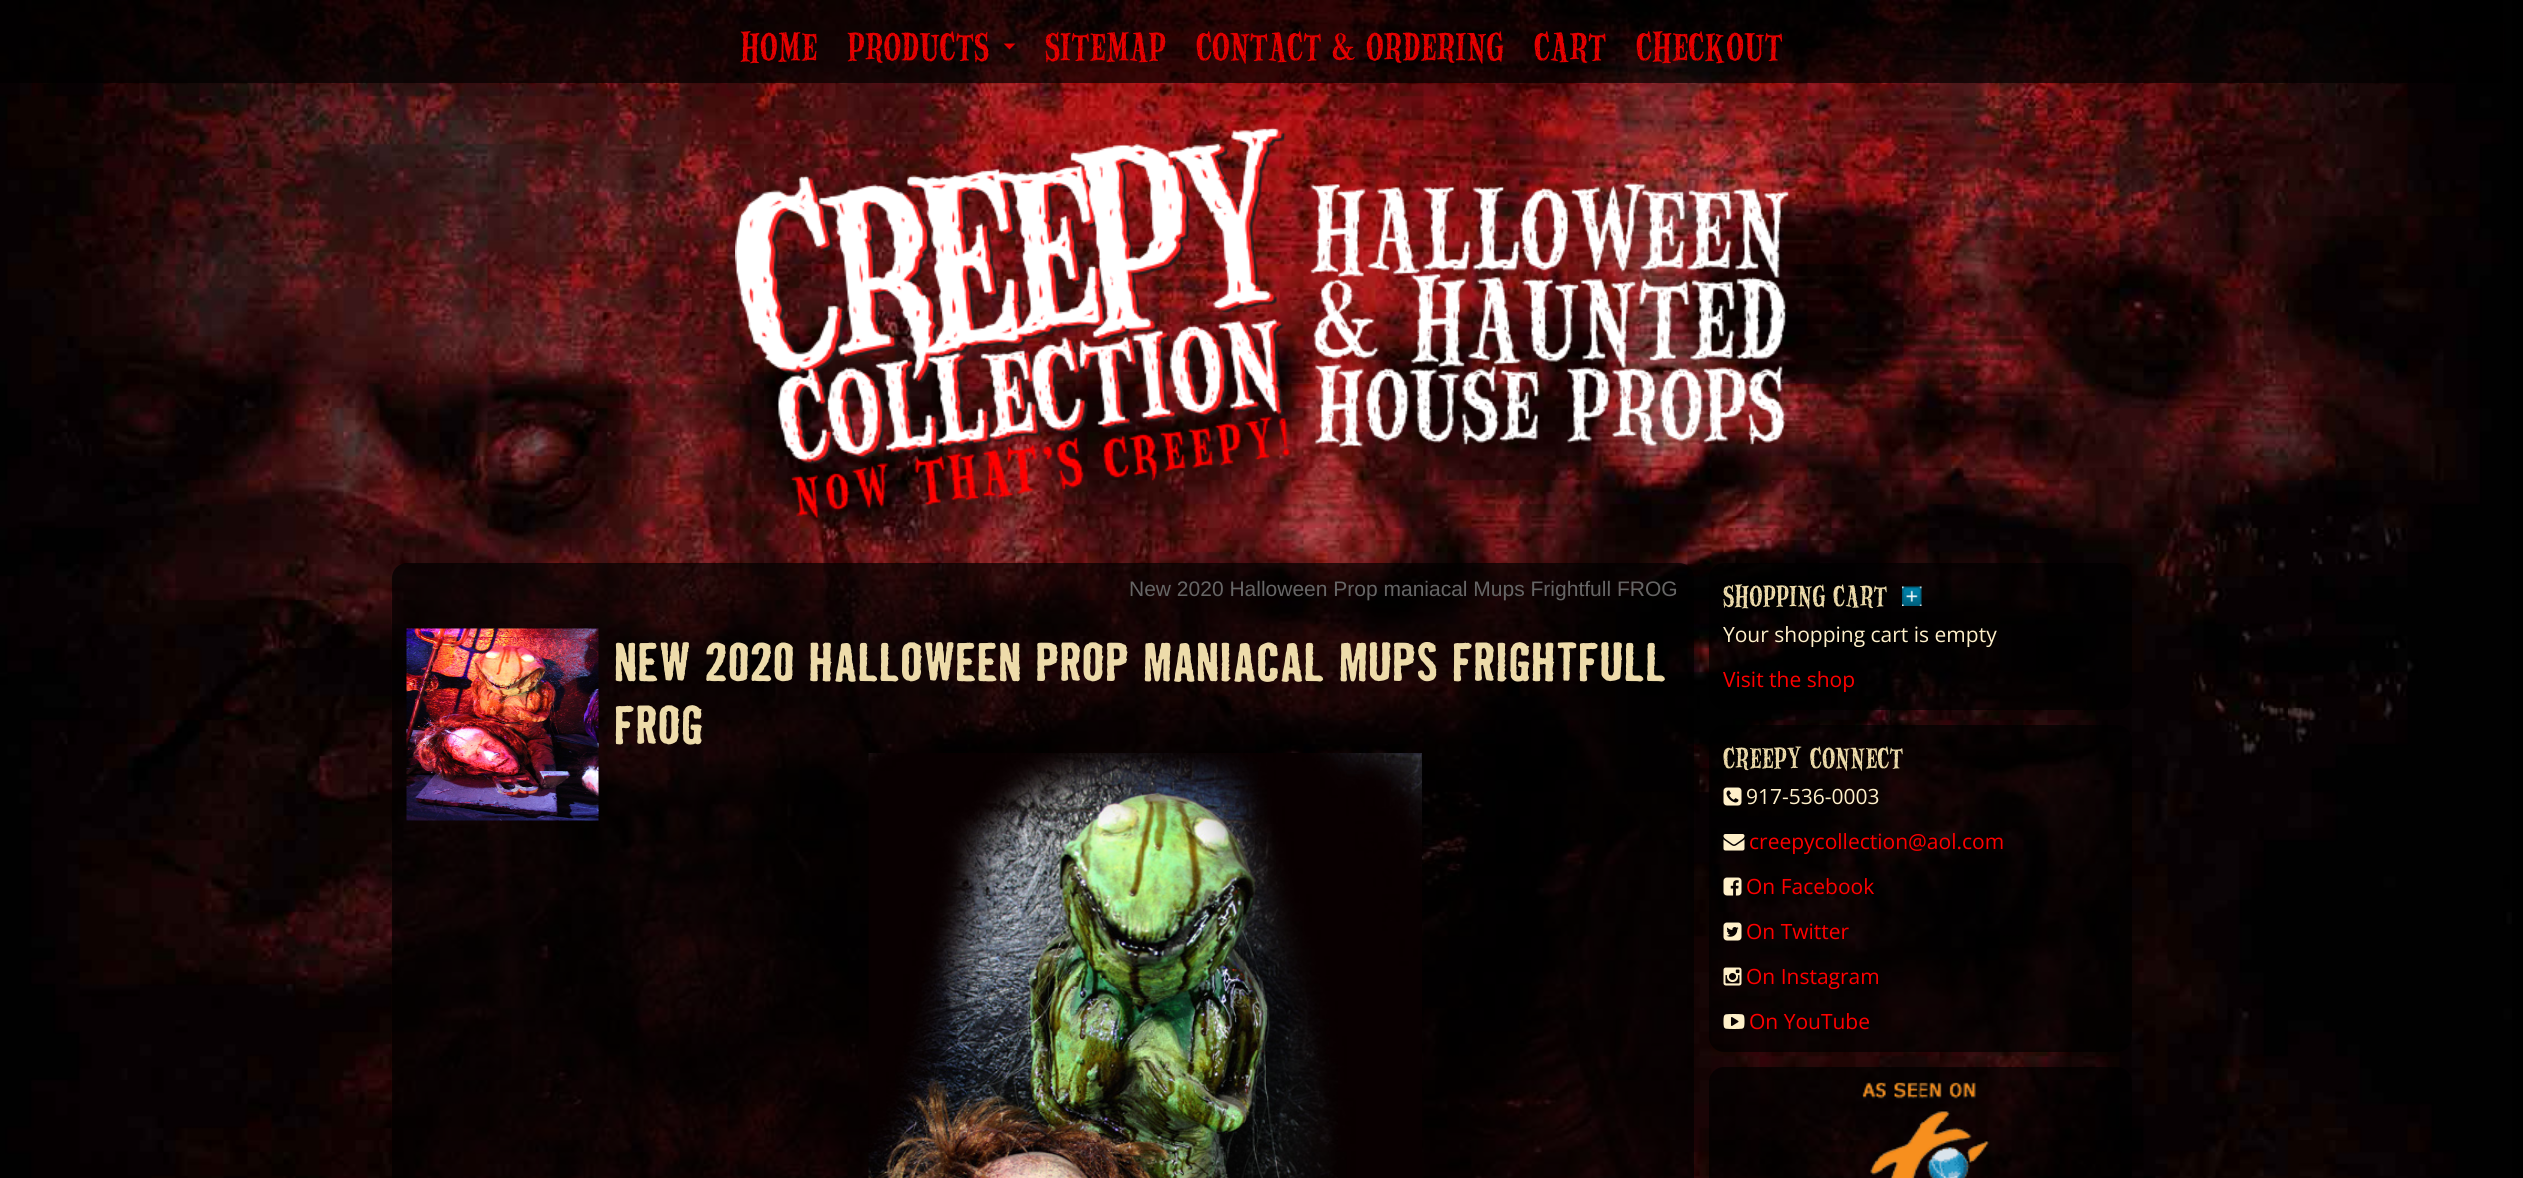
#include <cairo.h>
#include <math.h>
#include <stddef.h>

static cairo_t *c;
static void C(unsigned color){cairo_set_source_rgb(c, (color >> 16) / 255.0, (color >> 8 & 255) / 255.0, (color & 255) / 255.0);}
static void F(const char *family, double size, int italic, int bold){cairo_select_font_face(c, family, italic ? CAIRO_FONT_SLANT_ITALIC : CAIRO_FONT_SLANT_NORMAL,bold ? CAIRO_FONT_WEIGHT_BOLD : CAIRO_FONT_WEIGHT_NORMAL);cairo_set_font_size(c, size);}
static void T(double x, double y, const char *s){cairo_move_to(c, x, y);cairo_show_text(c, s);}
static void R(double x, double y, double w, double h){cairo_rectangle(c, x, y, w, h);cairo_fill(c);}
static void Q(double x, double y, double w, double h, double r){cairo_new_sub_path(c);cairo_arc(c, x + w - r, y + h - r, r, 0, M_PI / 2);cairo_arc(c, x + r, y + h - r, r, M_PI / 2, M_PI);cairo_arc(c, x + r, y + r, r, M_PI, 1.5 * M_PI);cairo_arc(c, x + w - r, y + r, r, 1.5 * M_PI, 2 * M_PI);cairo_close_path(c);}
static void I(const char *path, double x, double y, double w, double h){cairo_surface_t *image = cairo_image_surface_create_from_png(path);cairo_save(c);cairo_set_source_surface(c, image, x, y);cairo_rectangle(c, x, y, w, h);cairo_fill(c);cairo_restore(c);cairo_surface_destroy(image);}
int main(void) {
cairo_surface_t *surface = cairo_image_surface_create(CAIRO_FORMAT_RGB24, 2523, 1178);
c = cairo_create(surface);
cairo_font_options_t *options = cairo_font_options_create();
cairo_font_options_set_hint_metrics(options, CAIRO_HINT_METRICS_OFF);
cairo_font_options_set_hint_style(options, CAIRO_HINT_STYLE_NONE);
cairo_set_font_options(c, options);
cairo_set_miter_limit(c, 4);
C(0x000000);
cairo_paint(c);
I("1.png",0,0,2512,1178);
cairo_set_source_rgba(c,0,0,0,0.7);
R(0,0,2503,83);
F("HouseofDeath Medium",42,0,0);
C(0xe40000);
T(740,60,"HOME");
T(847,60,"PRODUCTS");
cairo_new_path(c);
cairo_move_to(c,1003.5,43.5);
cairo_line_to(c,1015.5,43.5);
cairo_line_to(c,1009.5,49.5);
cairo_close_path(c);
cairo_fill(c);
T(1045,60,"SITEMAP");
T(1196,60,"CONTACT & ORDERING");
T(1534,60,"CART");
T(1636,60,"CHECKOUT");
I("2.png",735,127,1055,391);
cairo_set_source_rgba(c,0,0,0,0.7);
Q(392,563,1302,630,15);
cairo_fill(c);
F("Liberation Sans",21,0,0);
C(0x666666);
T(1129,596,"New 2020 Halloween Prop maniacal Mups Frightfull FROG");
I("3.png",406,628,193,193);
F("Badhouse",50,0,1);
C(0xeddbaa);
T(614,681,"NEW 2020 HALLOWEEN PROP MANIACAL MUPS FRIGHTFULL");
T(614,744,"FROG");
I("4.png",868,753,554,425);
cairo_set_source_rgba(c,0,0,0,0.7);
Q(1709,563,423,147,15);
cairo_fill(c);
F("HouseofDeath Medium",31.5,0,0);
C(0xeddbaa);
T(1723,606,"SHOPPING CART");
I("5.png",1902,586,20,20);
F("Open Sans",21,0,0);
C(0xfff0c9);
T(1723,642,"Your shopping cart is empty");
C(0xff0000);
T(1723,687,"Visit the shop");
cairo_set_source_rgba(c,0,0,0,0.7);
Q(1709,725,423,327,15);
cairo_fill(c);
F("HouseofDeath Medium",31.5,0,0);
C(0xeddbaa);
T(1723,768,"CREEPY CONNECT");
I("6.png",1723,787,19,19);
F("Open Sans",21,0,0);
C(0xfff0c9);
T(1746,804,"917-536-0003");
I("7.png",1723,834,22,17);
C(0xff0000);
T(1749,849,"creepycollection@aol.com");
I("8.png",1723,877,19,19);
T(1746,894,"On Facebook");
I("9.png",1723,922,19,19);
T(1746,939,"On Twitter");
I("10.png",1723,967,19,19);
T(1746,984,"On Instagram");
I("11.png",1723,1014,22,15);
T(1749,1029,"On YouTube");
cairo_set_source_rgba(c,0,0,0,0.7);
Q(1709,1067,423,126,15);
cairo_fill(c);
I("12.png",1861,1081,129,97);
cairo_surface_write_to_png(surface, "o.png");
cairo_font_options_destroy(options);
cairo_destroy(c);
cairo_surface_destroy(surface);
return 0;
}
